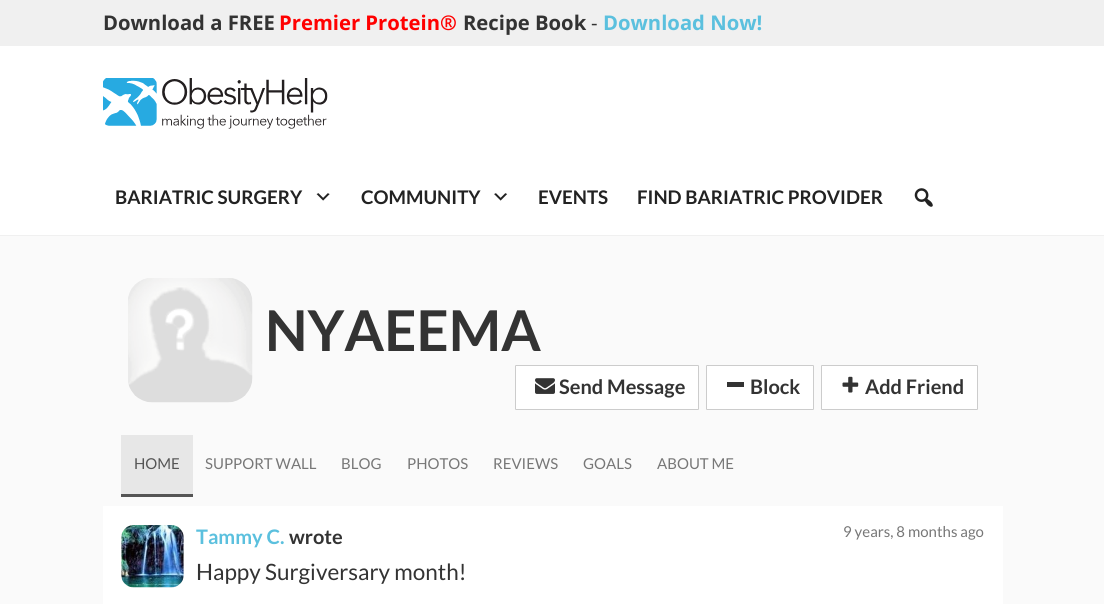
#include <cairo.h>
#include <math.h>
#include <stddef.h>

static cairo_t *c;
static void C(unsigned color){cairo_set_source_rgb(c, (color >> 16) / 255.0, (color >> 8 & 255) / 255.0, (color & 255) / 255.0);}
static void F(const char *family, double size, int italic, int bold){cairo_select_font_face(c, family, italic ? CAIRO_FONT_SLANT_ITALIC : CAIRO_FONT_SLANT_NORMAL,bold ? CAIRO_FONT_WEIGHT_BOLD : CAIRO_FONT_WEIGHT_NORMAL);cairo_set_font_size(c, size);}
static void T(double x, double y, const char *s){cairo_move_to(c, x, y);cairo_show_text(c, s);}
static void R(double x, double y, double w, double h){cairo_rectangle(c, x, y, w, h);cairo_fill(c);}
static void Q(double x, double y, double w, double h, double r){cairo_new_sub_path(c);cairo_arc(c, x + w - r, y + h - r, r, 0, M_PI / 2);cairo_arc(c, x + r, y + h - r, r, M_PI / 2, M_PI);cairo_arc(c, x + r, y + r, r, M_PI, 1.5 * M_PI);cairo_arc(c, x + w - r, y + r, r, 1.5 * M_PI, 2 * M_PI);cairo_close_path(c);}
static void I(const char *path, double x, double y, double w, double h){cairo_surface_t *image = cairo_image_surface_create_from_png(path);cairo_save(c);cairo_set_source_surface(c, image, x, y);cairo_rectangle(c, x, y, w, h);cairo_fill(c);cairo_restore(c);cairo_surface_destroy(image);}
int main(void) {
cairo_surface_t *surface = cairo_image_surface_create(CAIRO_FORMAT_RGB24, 1104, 604);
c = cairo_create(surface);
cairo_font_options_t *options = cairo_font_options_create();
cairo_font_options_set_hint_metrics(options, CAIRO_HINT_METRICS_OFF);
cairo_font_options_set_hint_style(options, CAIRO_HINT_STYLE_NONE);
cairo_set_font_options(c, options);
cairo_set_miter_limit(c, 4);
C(0xfafafa);
cairo_paint(c);
C(0xffffff);
R(0,46,1104,189);
C(0xf0f0f0);
R(0,235,1104,1);
R(0,0,1104,46);
F("Open Sans",20.25,0,1);
C(0x333333);
T(103,30,"Download a FREE");
C(0xff0000);
T(279,30,"Premier Protein®");
C(0x333333);
T(463,30,"Recipe Book");
F("Open Sans",20.25,0,0);
T(591,30,"-");
F("Open Sans",20.25,0,1);
C(0x5bc0de);
T(603,30,"Download Now!");
I("1.png",103,78,225,51);
F("Lato",18.75,0,1);
C(0x222222);
T(115,204,"BARIATRIC SURGERY");
I("2.png",316,193,14,8);
T(361,204,"COMMUNITY");
I("3.png",494,193,14,8);
T(538,204,"EVENTS");
T(637,204,"FIND BARIATRIC PROVIDER");
I("4.png",914,188,19,19);
I("5.png",128,278,125,125);
F("Lato",56.25,0,1);
C(0x333333);
T(265,351,"NYAEEMA");
C(0xffffff);
Q(515.5,365.5,183,44,.5);
cairo_fill_preserve(c);
C(0xcccccc);
cairo_set_line_width(c,1);
cairo_stroke(c);
I("6.png",535,378,20,16);
F("Lato",20,0,1);
C(0x333333);
T(559,394,"Send Message");
C(0xffffff);
Q(706.5,365.5,107,44,.5);
cairo_fill_preserve(c);
C(0xcccccc);
cairo_stroke(c);
C(0x333333);
R(727,382,17,5);
T(750,394,"Block");
C(0xffffff);
Q(821.5,365.5,156,44,.5);
cairo_fill_preserve(c);
C(0xcccccc);
cairo_stroke(c);
I("7.png",842,376,17,17);
C(0x333333);
T(865,394,"Add Friend");
C(0xe7e7e7);
R(121,435,72,59);
C(0x555555);
R(121,494,72,3);
F("Lato",15,0,0);
T(134,469,"HOME");
C(0x777777);
T(205,469,"SUPPORT WALL");
T(341,469,"BLOG");
T(407,469,"PHOTOS");
T(493,469,"REVIEWS");
T(583,469,"GOALS");
T(657,469,"ABOUT ME");
C(0xffffff);
R(103,506,900,98);
I("8.png",121,525,63,63);
F("Lato",20,0,1);
C(0x5bc0de);
T(196,544,"Tammy C.");
C(0x333333);
T(289,544,"wrote");
F("Lato",15,0,0);
C(0x777777);
T(843,537,"9 years, 8 months ago");
F("Lato",22.5,0,0);
C(0x333333);
T(196,580,"Happy Surgiversary month!");
cairo_surface_write_to_png(surface, "o.png");
cairo_font_options_destroy(options);
cairo_destroy(c);
cairo_surface_destroy(surface);
return 0;
}
